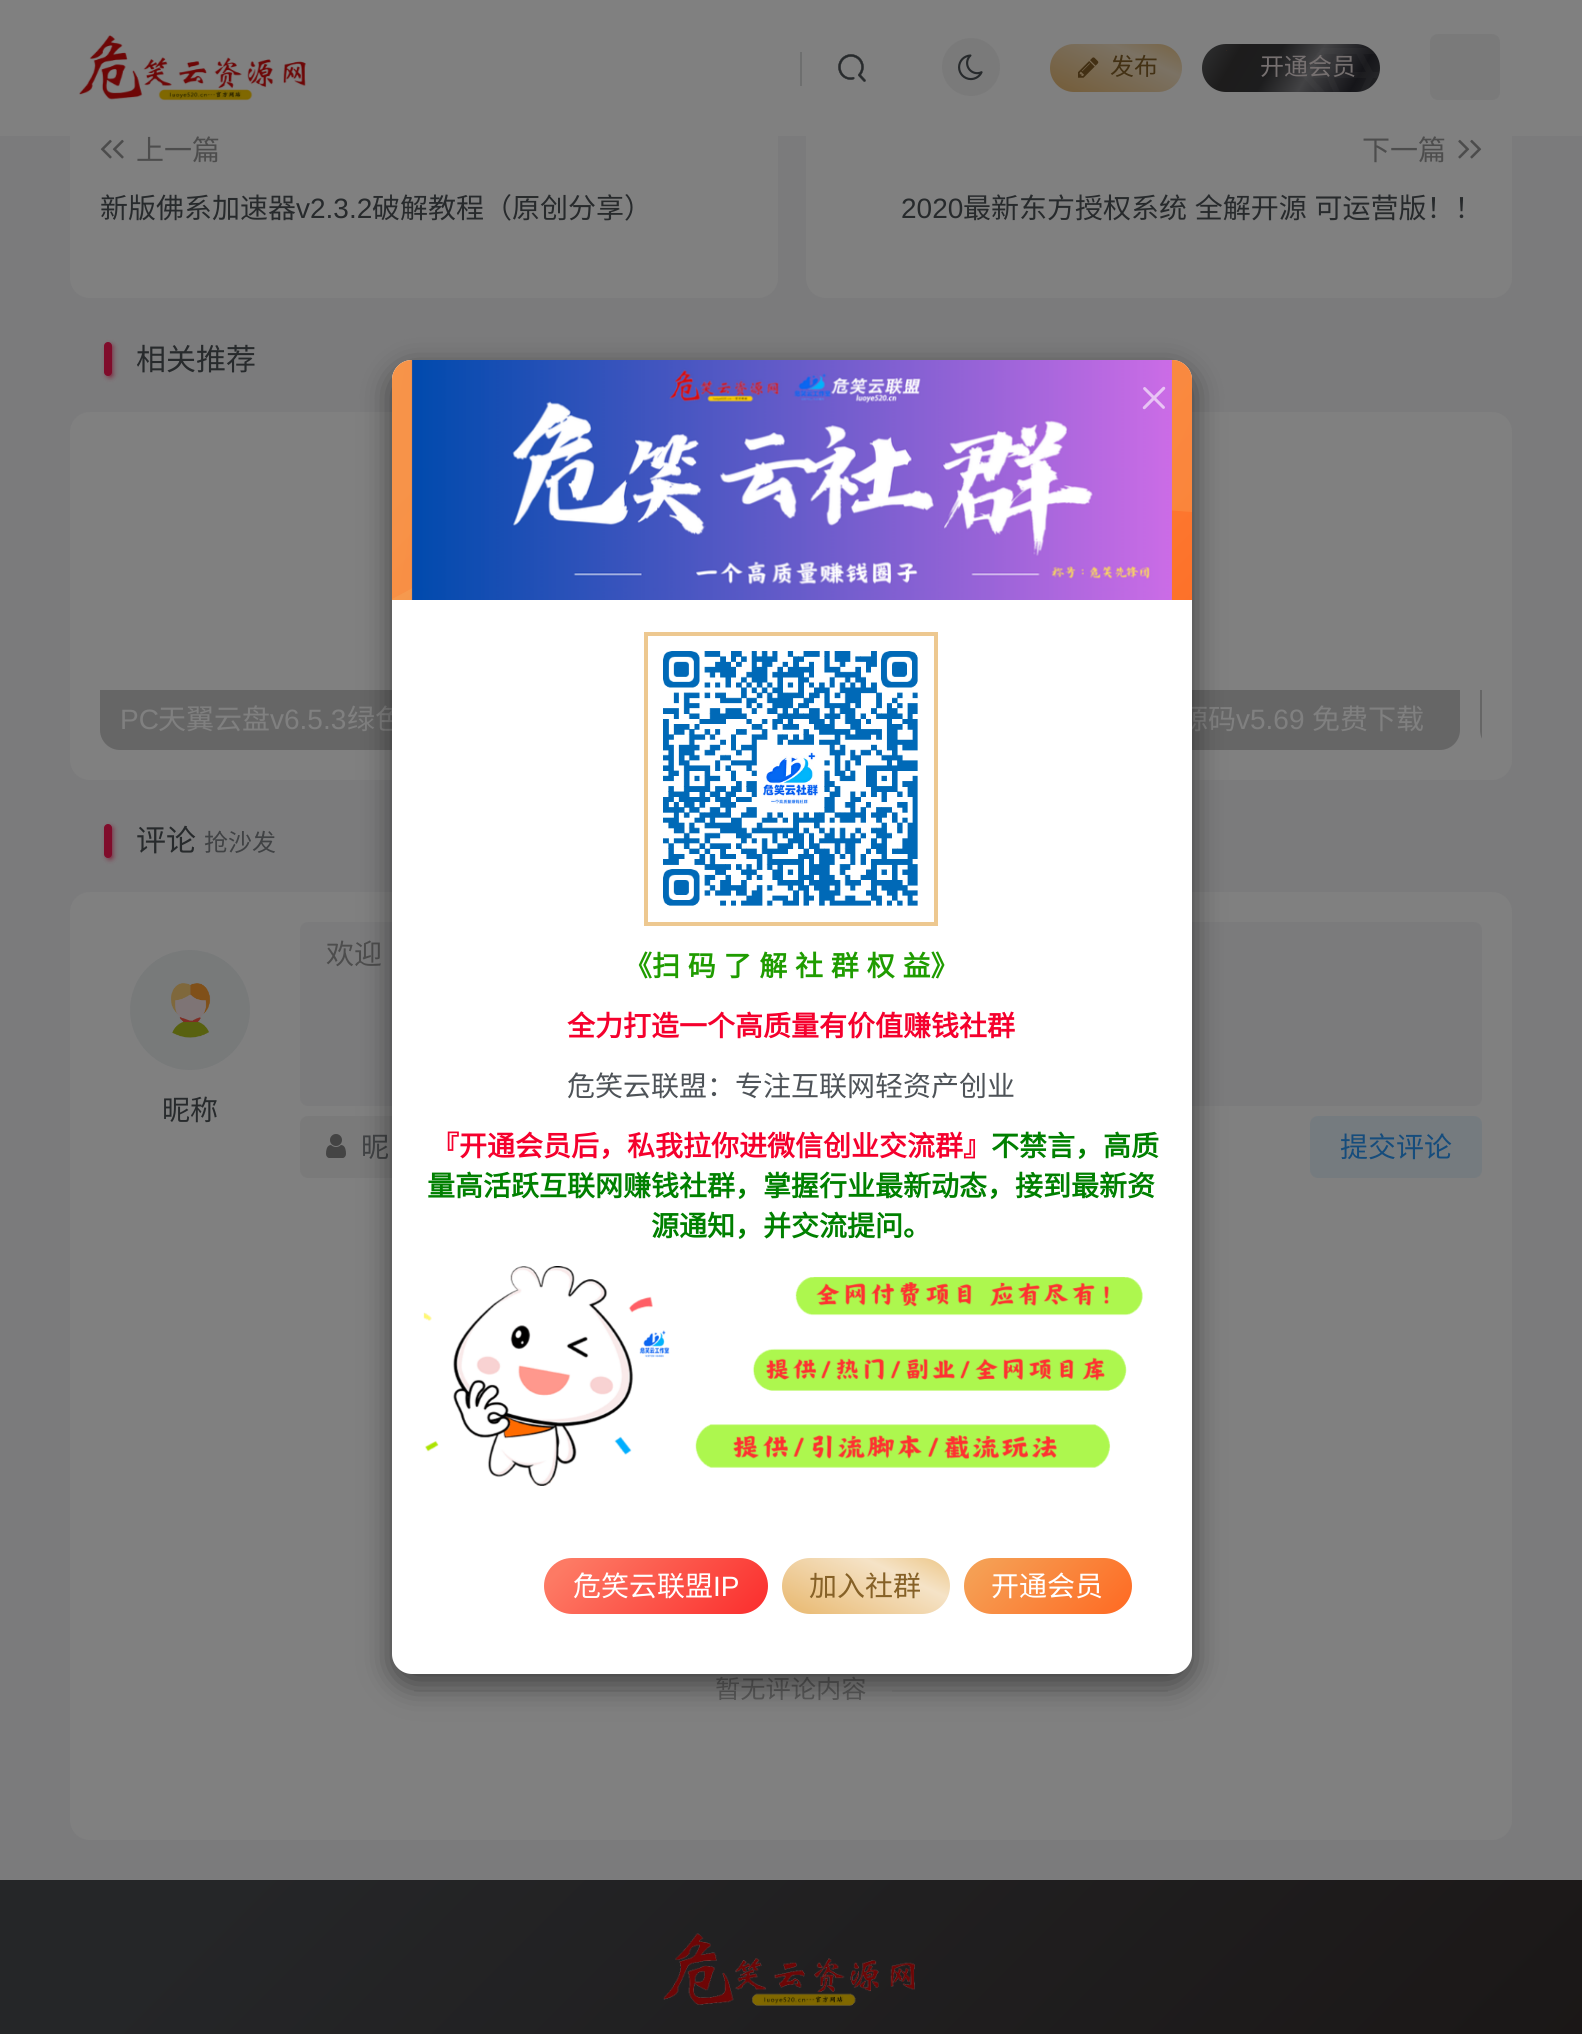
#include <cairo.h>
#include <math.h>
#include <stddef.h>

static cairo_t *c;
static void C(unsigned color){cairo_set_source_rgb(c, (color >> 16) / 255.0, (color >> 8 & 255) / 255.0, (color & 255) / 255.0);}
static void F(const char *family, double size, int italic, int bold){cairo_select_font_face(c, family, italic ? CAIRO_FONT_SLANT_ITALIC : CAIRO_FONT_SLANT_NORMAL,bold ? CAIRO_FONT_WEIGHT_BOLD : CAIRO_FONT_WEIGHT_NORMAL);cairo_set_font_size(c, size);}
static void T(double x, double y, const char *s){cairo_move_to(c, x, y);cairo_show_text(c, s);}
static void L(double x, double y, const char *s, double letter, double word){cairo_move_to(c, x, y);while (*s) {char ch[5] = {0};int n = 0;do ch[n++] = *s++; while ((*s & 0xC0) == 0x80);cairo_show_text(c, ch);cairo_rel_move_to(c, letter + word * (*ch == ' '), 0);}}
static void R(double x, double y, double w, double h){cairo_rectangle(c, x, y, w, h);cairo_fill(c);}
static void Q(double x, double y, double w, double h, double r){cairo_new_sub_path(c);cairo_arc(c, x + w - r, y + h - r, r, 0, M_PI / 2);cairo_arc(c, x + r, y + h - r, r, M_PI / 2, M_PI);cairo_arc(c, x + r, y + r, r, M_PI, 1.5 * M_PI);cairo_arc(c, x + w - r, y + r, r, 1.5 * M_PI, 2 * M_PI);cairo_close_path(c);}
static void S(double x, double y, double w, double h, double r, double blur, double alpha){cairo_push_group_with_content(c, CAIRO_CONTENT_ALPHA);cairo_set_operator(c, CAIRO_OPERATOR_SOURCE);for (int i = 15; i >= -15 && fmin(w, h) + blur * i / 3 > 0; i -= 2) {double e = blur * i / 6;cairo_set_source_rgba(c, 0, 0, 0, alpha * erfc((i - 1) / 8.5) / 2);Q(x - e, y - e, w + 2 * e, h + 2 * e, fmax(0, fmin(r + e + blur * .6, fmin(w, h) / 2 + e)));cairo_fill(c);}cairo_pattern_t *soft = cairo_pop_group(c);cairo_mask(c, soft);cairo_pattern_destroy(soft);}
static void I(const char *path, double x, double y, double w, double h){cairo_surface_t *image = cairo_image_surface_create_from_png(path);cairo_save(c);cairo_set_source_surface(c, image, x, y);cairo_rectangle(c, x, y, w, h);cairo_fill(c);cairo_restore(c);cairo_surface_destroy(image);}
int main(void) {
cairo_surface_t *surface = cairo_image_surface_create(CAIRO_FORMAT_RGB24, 1582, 2034);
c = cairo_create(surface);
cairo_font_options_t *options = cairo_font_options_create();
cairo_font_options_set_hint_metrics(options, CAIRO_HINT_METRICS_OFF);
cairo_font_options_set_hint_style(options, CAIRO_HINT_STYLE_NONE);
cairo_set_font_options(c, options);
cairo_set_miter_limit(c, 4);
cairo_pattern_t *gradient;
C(0x7b7b7c);
cairo_paint(c);
C(0x808080);
Q(70,100,708,198,20);
cairo_fill(c);
Q(806,100,706,198,20);
cairo_fill(c);
R(0,0,1582,136);
I("1.png",79,35,227,66);
C(0x6e6f6f);
R(800,52,2,34);
I("2.png",838,54,28,28);
C(0x7a7a7a);
cairo_arc(c,971,67,29,0,2 * M_PI);
cairo_fill(c);
I("3.png",958,54,25,27);
gradient = cairo_pattern_create_linear(1095,113,1137,23);
cairo_pattern_add_color_stop_rgba(gradient,.1,0.459,0.373,0.243,1);
cairo_pattern_add_color_stop_rgba(gradient,.7,0.482,0.447,0.392,1);
cairo_pattern_add_color_stop_rgba(gradient,1,0.467,0.392,0.267,1);
cairo_set_source(c,gradient);
cairo_pattern_destroy(gradient);
Q(1050,44,132,48,24);
cairo_fill(c);
I("4.png",1078,57,21,21);
F("Noto Sans CJK SC",24,0,0);
C(0x433114);
T(1110,75,"发布");
gradient = cairo_pattern_create_linear(1368,113,1214,23);
cairo_pattern_add_color_stop_rgba(gradient,0,0.149,0.153,0.161,1);
cairo_pattern_add_color_stop_rgba(gradient,.15,0.082,0.082,0.098,1);
cairo_pattern_add_color_stop_rgba(gradient,.4,0.263,0.263,0.271,1);
cairo_pattern_add_color_stop_rgba(gradient,.6,0.114,0.114,0.118,1);
cairo_pattern_add_color_stop_rgba(gradient,.8,0.114,0.11,0.11,1);
cairo_pattern_add_color_stop_rgba(gradient,1,0.184,0.188,0.192,1);
cairo_set_source(c,gradient);
cairo_pattern_destroy(gradient);
Q(1202,44,178,48,24);
cairo_fill(c);
C(0x312722);
R(1226,50,1,1);
C(0x767070);
T(1260,75,"开通会员");
I("5.png",1302,48,77,44);
C(0x7a7a7a);
Q(1430,34,70,66,8);
cairo_fill(c);
I("6.png",100,139,12,20);
I("6.png",112,139,12,20);
F("Noto Sans CJK SC",28,0,0);
C(0x4d4d4d);
T(136,160,"上一篇");
C(0x272a2c);
T(100,218,"新版佛系加速器");
F("Liberation Sans",28,0,0);
T(296,218,"v2.3.2");
F("Noto Sans CJK SC",28,0,0);
T(372,218,"破解教程（原创分享）");
C(0x4d4d4d);
T(1362,160,"下一篇");
I("7.png",1458,139,12,20);
I("7.png",1470,139,12,20);
F("Liberation Sans",28,0,0);
C(0x272a2c);
T(901,218,"2020");
F("Noto Sans CJK SC",28,0,0);
L(963,218,"最新东方授权系统 全解开源 可运营版！！",0,1.5);
C(0x800c2b);
S(108,346,4,30,2,3,1);
C(0x800c2b);
Q(104,342,8,34,4);
cairo_fill(c);
F("Noto Sans CJK SC",30,0,0);
C(0x272a2c);
T(136,370,"相关推荐");
C(0x808080);
Q(70,412,1442,368,20);
cairo_fill(c);
C(0x666666);
cairo_new_path(c);
cairo_move_to(c,100,690);
cairo_line_to(c,540,690);
cairo_line_to(c,540,730);
cairo_curve_to(c,540,741,531,750,520,750);
cairo_line_to(c,120,750);
cairo_curve_to(c,109,750,100,741,100,730);
cairo_close_path(c);
cairo_fill(c);
F("Liberation Sans",28,0,0);
C(0x808080);
T(120,729,"PC");
F("Noto Sans CJK SC",28,0,0);
T(158,729,"天翼云盘");
F("Liberation Sans",28,0,0);
T(270,729,"v6.5.3");
F("Noto Sans CJK SC",28,0,0);
T(347,729,"绿色");
C(0x666666);
cairo_new_path(c);
cairo_move_to(c,1020,690);
cairo_line_to(c,1460,690);
cairo_line_to(c,1460,730);
cairo_curve_to(c,1460,741,1451,750,1440,750);
cairo_line_to(c,1040,750);
cairo_curve_to(c,1029,750,1020,741,1020,730);
cairo_close_path(c);
cairo_fill(c);
C(0x808080);
T(1180,729,"源码");
F("Liberation Sans",28,0,0);
T(1236,729,"v5.69");
F("Noto Sans CJK SC",28,0,0);
T(1312,729,"免费下载");
cairo_save(c);
Q(1480,442,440,308,20);
cairo_clip(c);
C(0x666666);
R(1480,690,2,49);
cairo_restore(c);
C(0x800c2b);
S(108,828,4,30,2,3,1);
C(0x800c2b);
Q(104,824,8,34,4);
cairo_fill(c);
F("Noto Sans CJK SC",30,0,0);
C(0x272a2c);
T(136,851,"评论");
F("Noto Sans CJK SC",24,0,0);
C(0x404244);
T(204,851,"抢沙发");
C(0x808080);
Q(70,892,1442,948,20);
cairo_fill(c);
I("8.png",130,950,120,120);
F("Noto Sans CJK SC",28,0,0);
C(0x272a2c);
T(162,1120,"昵称");
C(0x7b7b7c);
Q(300,922,1182,184,8);
cairo_fill(c);
C(0x4d4d4d);
T(326,964,"欢迎");
C(0x7a7a7a);
Q(300,1116,136,62,8);
cairo_fill(c);
I("9.png",326,1134,20,24);
C(0x404244);
T(361,1157,"昵");
C(0x757b7f);
Q(1310,1116,172,62,8);
cairo_fill(c);
C(0x154c7c);
T(1340,1157,"提交评论");
C(0x7a7a7a);
R(414,1690,276,2);
F("Noto Sans CJK SC",25.25,0,0);
C(0x595959);
T(715,1698,"暂无评论内容");
C(0x7a7a7a);
R(892,1690,276,2);
C(0x000000);
S(392,370,800,1314,20,15,.5);
C(0xffffff);
Q(392,360,800,1314,20);
cairo_fill(c);
gradient = cairo_pattern_create_linear(572,180,1172,780);
cairo_pattern_add_color_stop_rgba(gradient,.1,0.961,0.624,0.329,1);
cairo_pattern_add_color_stop_rgba(gradient,1,1,0.412,0.133,1);
cairo_set_source(c,gradient);
cairo_pattern_destroy(gradient);
cairo_new_path(c);
cairo_move_to(c,412,360);
cairo_line_to(c,1172,360);
cairo_curve_to(c,1183,360,1192,369,1192,380);
cairo_line_to(c,1192,600);
cairo_line_to(c,392,600);
cairo_line_to(c,392,380);
cairo_curve_to(c,392,369,401,360,412,360);
cairo_close_path(c);
cairo_fill(c);
gradient = cairo_pattern_create_linear(-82,295,774,461);
cairo_pattern_add_color_stop_rgba(gradient,.1,0.961,0.624,0.329,.4);
cairo_pattern_add_color_stop_rgba(gradient,1,1,0.412,0.133,.4);
cairo_set_source(c,gradient);
cairo_pattern_destroy(gradient);
cairo_new_path(c);
cairo_move_to(c,412,360);
cairo_line_to(c,657,360);
cairo_curve_to(c,598,461,496,545,392,599);
cairo_line_to(c,392,380);
cairo_curve_to(c,392,369,401,360,412,360);
cairo_close_path(c);
cairo_fill(c);
gradient = cairo_pattern_create_linear(932,-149,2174,457);
cairo_pattern_add_color_stop_rgba(gradient,.1,0.961,0.624,0.329,.6);
cairo_pattern_add_color_stop_rgba(gradient,1,1,0.412,0.133,.6);
cairo_set_source(c,gradient);
cairo_pattern_destroy(gradient);
cairo_new_path(c);
cairo_move_to(c,1192,512);
cairo_curve_to(c,1093,506,936,476,909,360);
cairo_line_to(c,1172,360);
cairo_curve_to(c,1183,360,1192,369,1192,380);
cairo_close_path(c);
cairo_fill(c);
I("10.png",411,360,761,240);
I("11.png",1142,386,24,24);
cairo_rectangle(c,646,634,290,290);
C(0xedc890);
cairo_set_line_width(c,4);
cairo_stroke(c);
I("12.png",663,651,255,255);
F("Noto Sans CJK SC",28,0,1);
C(0x1f9c00);
L(624,976,"《扫 码 了 解 社 群 权 益》",0,1.5);
C(0xf5002d);
T(567,1036,"全力打造一个高质量有价值赚钱社群");
F("Noto Sans CJK SC",28,0,0);
C(0x4e5358);
T(567,1096,"危笑云联盟：专注互联网轻资产创业");
F("Noto Sans CJK SC",28,0,1);
C(0xf5002d);
T(431,1156,"『开通会员后，私我拉你进微信创业交流群』");
C(0x008000);
T(991,1156,"不禁言，高质");
T(427,1196,"量高活跃互联网赚钱社群，掌握行业最新动态，接到最新资");
T(651,1236,"源通知，并交流提问。");
I("13.png",423,1266,720,220);
gradient = cairo_pattern_create_linear(586,1516,726,1656);
cairo_pattern_add_color_stop_rgba(gradient,.1,0.992,0.478,0.392,1);
cairo_pattern_add_color_stop_rgba(gradient,1,0.984,0.176,0.176,1);
cairo_set_source(c,gradient);
cairo_pattern_destroy(gradient);
Q(544,1558,224,56,28);
cairo_fill(c);
F("Noto Sans CJK SC",28,0,0);
C(0xffffff);
T(573,1596,"危笑云联盟");
F("Liberation Sans",28,0,0);
T(713,1596,"IP");
gradient = cairo_pattern_create_linear(840,1641,892,1531);
cairo_pattern_add_color_stop_rgba(gradient,.1,0.918,0.745,0.482,1);
cairo_pattern_add_color_stop_rgba(gradient,.7,0.961,0.89,0.78,1);
cairo_pattern_add_color_stop_rgba(gradient,1,0.929,0.78,0.533,1);
cairo_set_source(c,gradient);
cairo_pattern_destroy(gradient);
Q(782,1558,168,56,28);
cairo_fill(c);
F("Noto Sans CJK SC",28,0,0);
C(0x866127);
T(809,1596,"加入社群");
gradient = cairo_pattern_create_linear(992,1530,1104,1642);
cairo_pattern_add_color_stop_rgba(gradient,.1,0.961,0.624,0.329,1);
cairo_pattern_add_color_stop_rgba(gradient,1,1,0.412,0.133,1);
cairo_set_source(c,gradient);
cairo_pattern_destroy(gradient);
Q(964,1558,168,56,28);
cairo_fill(c);
C(0xffffff);
T(991,1596,"开通会员");
gradient = cairo_pattern_create_linear(225,1655,1357,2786);
cairo_pattern_add_color_stop_rgba(gradient,.1,0.145,0.149,0.157,1);
cairo_pattern_add_color_stop_rgba(gradient,1,0.09,0.071,0.067,1);
cairo_set_source(c,gradient);
cairo_pattern_destroy(gradient);
R(0,1880,1582,154);
I("14.png",663,1933,252,73);
cairo_surface_write_to_png(surface, "o.png");
cairo_font_options_destroy(options);
cairo_destroy(c);
cairo_surface_destroy(surface);
return 0;
}
